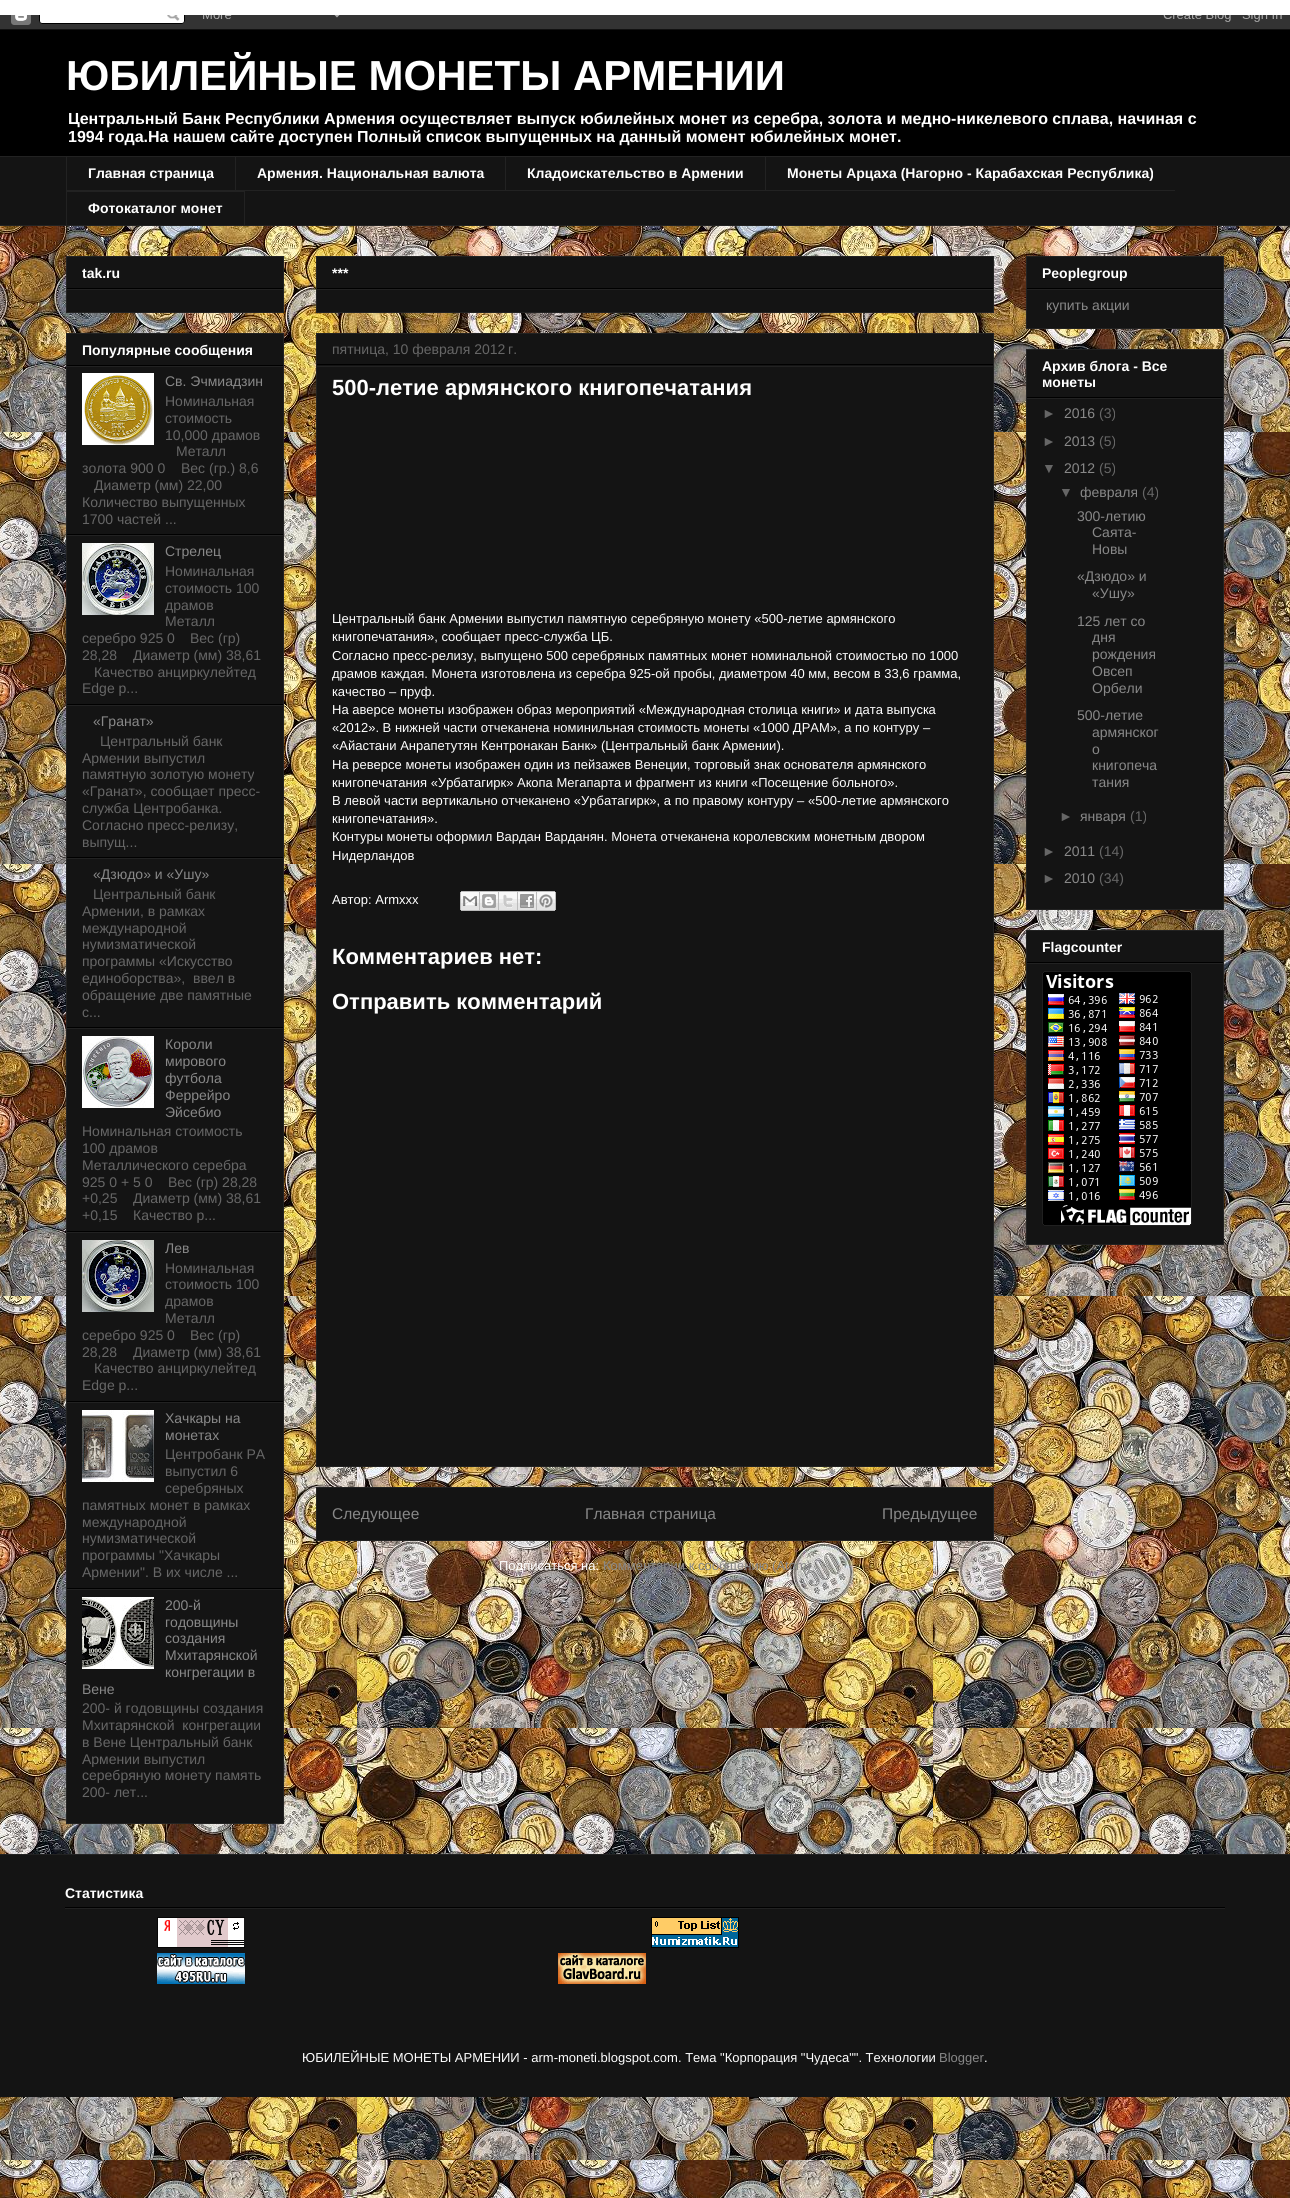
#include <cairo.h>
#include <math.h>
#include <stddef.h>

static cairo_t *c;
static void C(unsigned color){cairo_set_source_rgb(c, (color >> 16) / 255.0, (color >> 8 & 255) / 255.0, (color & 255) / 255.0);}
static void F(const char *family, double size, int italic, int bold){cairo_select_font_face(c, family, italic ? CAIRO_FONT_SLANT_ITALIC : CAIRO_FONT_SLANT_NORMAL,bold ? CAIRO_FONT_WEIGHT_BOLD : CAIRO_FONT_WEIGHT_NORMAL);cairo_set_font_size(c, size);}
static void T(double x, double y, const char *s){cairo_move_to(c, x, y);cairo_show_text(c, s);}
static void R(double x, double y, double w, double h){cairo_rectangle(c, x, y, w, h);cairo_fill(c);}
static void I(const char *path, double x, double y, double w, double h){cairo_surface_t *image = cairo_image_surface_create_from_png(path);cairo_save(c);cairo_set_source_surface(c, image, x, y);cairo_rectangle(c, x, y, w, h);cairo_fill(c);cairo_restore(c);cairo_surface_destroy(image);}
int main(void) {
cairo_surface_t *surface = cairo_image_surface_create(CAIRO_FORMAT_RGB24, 1290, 2198);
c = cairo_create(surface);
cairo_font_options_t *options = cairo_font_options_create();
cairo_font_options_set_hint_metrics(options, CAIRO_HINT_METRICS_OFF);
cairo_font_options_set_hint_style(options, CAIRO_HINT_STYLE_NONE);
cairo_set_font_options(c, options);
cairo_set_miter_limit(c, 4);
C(0xffffff);
cairo_paint(c);
I("1.png",0,226,1290,1972);
I("2.png",0,15,1290,15);
C(0x000000);
R(0,30,1290,126);
F("Liberation Sans",42,0,1);
C(0xffffff);
T(66,90,"ЮБИЛЕЙНЫЕ МОНЕТЫ АРМЕНИИ");
F("Liberation Sans",16,0,1);
T(68,124,"Центральный Банк Республики Армения осуществляет выпуск юбилейных монет из серебра, золота и медно-никелевого сплава, начиная с");
T(68,142,"1994 года.На нашем сайте доступен Полный список выпущенных на данный момент юбилейных монет.");
C(0x141414);
R(0,157,1290,68);
C(0x222222);
R(0,156,1290,1);
R(66,190,1109,1);
R(66,156,1,35);
F("Liberation Sans",14,0,1);
C(0xffffff);
T(88,178,"Главная страница");
C(0x222222);
R(235,156,1,35);
C(0xffffff);
T(257,178,"Армения. Национальная валюта");
C(0x222222);
R(505,156,1,35);
C(0xffffff);
T(527,178,"Кладоискательство в Армении");
C(0x222222);
R(765,156,1,35);
C(0xffffff);
T(787,178,"Монеты Арцаха (Нагорно - Карабахская Республика)");
cairo_rectangle(c,66.5,191.5,178,34);
C(0x222222);
cairo_set_line_width(c,1);
cairo_stroke(c);
C(0xffffff);
T(88,213,"Фотокаталог монет");
C(0x222222);
R(0,225,1290,1);
C(0x141414);
cairo_rectangle(c,66.5,256.5,217,56);
cairo_fill_preserve(c);
C(0x222222);
cairo_stroke(c);
C(0x000000);
R(67,288,216,1);
C(0xffffff);
T(82,278,"tak.ru");
C(0x222222);
R(67,289,216,1);
C(0x141414);
cairo_rectangle(c,66.5,333.5,217,1490);
cairo_fill_preserve(c);
C(0x222222);
cairo_stroke(c);
C(0x000000);
R(67,365,216,1);
C(0xffffff);
T(82,355,"Популярные сообщения");
C(0x222222);
R(67,366,216,1);
C(0x000000);
R(67,534,216,1);
I("3.png",82,373,72,72);
F("Liberation Sans",14,0,0);
C(0x888888);
T(165,386,"Св. Эчмиадзин");
C(0x666666);
T(165,406,"Номинальная");
T(165,423,"стоимость");
T(165,440,"10,000 драмов");
T(176,456,"Металл");
T(82,473,"золота 900 0");
T(181,473,"Вес (гр.) 8,6");
T(94,490,"Диаметр (мм) 22,00");
T(82,507,"Количество выпущенных");
T(82,524,"1700 частей ...");
C(0x222222);
R(67,535,216,1);
C(0x000000);
R(67,704,216,1);
I("4.png",82,543,72,72);
C(0x888888);
T(165,556,"Стрелец");
C(0x666666);
T(165,576,"Номинальная");
T(165,593,"стоимость 100");
T(165,610,"драмов");
T(165,626,"Металл");
T(82,643,"серебро 925 0");
T(190,643,"Вес (гр)");
T(82,660,"28,28");
T(133,660,"Диаметр (мм) 38,61");
T(94,677,"Качество анциркулейтед");
T(82,693,"Edge р...");
C(0x222222);
R(67,705,216,1);
C(0x000000);
R(67,857,216,1);
C(0x888888);
T(93,726,"«Гранат»");
C(0x666666);
T(100,746,"Центральный банк");
T(82,763,"Армении выпустил");
T(82,779,"памятную золотую монету");
T(82,796,"«Гранат», сообщает пресс-");
T(82,813,"служба Центробанка.");
T(82,830,"Согласно пресс-релизу,");
T(82,847,"выпущ...");
C(0x222222);
R(67,858,216,1);
C(0x000000);
R(67,1027,216,1);
C(0x888888);
T(93,879,"«Дзюдо» и «Ушу»");
C(0x666666);
T(93,899,"Центральный банк");
T(82,916,"Армении, в рамках");
T(82,933,"международной");
T(82,949,"нумизматической");
T(82,966,"программы «Искусство");
T(82,983,"единоборства»,  ввел в");
T(82,1000,"обращение две памятные");
T(82,1017,"с...");
C(0x222222);
R(67,1028,216,1);
C(0x000000);
R(67,1231,216,1);
I("5.png",82,1036,72,72);
C(0x888888);
T(165,1049,"Короли");
T(165,1066,"мирового");
T(165,1083,"футбола");
T(165,1100,"Феррейро");
T(165,1117,"Эйсебио");
C(0x666666);
T(82,1136,"Номинальная стоимость");
T(82,1153,"100 драмов");
T(82,1170,"Металлического серебра");
T(82,1187,"925 0 + 5 0");
T(168,1187,"Вес (гр) 28,28");
T(82,1203,"+0,25");
T(133,1203,"Диаметр (мм) 38,61");
T(82,1220,"+0,15");
T(133,1220,"Качество p...");
C(0x222222);
R(67,1232,216,1);
C(0x000000);
R(67,1401,216,1);
I("6.png",82,1240,72,72);
C(0x888888);
T(165,1253,"Лев");
C(0x666666);
T(165,1273,"Номинальная");
T(165,1289,"стоимость 100");
T(165,1306,"драмов");
T(165,1323,"Металл");
T(82,1340,"серебро 925 0");
T(190,1340,"Вес (гр)");
T(82,1357,"28,28");
T(133,1357,"Диаметр (мм) 38,61");
T(94,1373,"Качество анциркулейтед");
T(82,1390,"Edge р...");
C(0x222222);
R(67,1402,216,1);
C(0x000000);
R(67,1588,216,1);
I("7.png",82,1410,72,72);
C(0x888888);
T(165,1423,"Хачкары на");
T(165,1440,"монетах");
C(0x666666);
T(165,1459,"Центробанк РА");
T(165,1476,"выпустил 6");
T(165,1493,"серебряных");
T(82,1510,"памятных монет в рамках");
T(82,1527,"международной");
T(82,1543,"нумизматической");
T(82,1560,"программы \"Хачкары");
T(82,1577,"Армении\". В их числе ...");
C(0x222222);
R(67,1589,216,1);
I("8.png",82,1597,72,72);
C(0x888888);
T(165,1610,"200-й");
T(165,1627,"годовщины");
T(165,1643,"создания");
T(165,1660,"Mхитарянской");
T(165,1677,"конгрегации в");
T(82,1694,"Вене");
C(0x666666);
T(82,1713,"200- й годовщины создания");
T(82,1730,"Mхитарянской  конгрегации");
T(82,1747,"в Вене Центральный банк");
T(82,1764,"Армении выпустил");
T(82,1780,"серебряную монету память");
T(82,1797,"200- лет...");
C(0x141414);
cairo_rectangle(c,316.5,256.5,677,56);
cairo_fill_preserve(c);
C(0x222222);
cairo_stroke(c);
C(0x000000);
R(317,288,676,1);
F("Liberation Sans",14,0,1);
C(0xffffff);
T(332,278,"***");
C(0x222222);
R(317,289,676,1);
C(0x141414);
cairo_rectangle(c,316.5,333.5,677,1133);
cairo_fill_preserve(c);
C(0x222222);
cairo_stroke(c);
C(0x000000);
R(317,364,676,1);
F("Liberation Sans",14,0,0);
C(0x666666);
T(332,354,"пятница, 10 февраля 2012 г.");
C(0x222222);
R(317,366,676,1);
F("Liberation Sans",22,0,1);
C(0xffffff);
T(332,395,"500-летие армянского книгопечатания");
F("Liberation Sans",13,0,0);
T(332,623,"Центральный банк Армении выпустил памятную серебряную монету «500-летие армянского");
T(332,641,"книгопечатания», сообщает пресс-служба ЦБ.");
T(332,660,"Согласно пресс-релизу, выпущено 500 серебряных памятных монет номинальной стоимостью по 1000");
T(332,678,"драмов каждая. Монета изготовлена из серебра 925-ой пробы, диаметром 40 мм, весом в 33,6 грамма,");
T(332,696,"качество – пруф.");
T(332,714,"На аверсе монеты изображен образ мероприятий «Международная столица книги» и дата выпуска");
T(332,732,"«2012». В нижней части отчеканена номинильная стоимость монеты «1000 ДРАМ», а по контуру –");
T(332,750,"«Айастани Анрапетутян Кентронакан Банк» (Центральный банк Армении).");
T(332,769,"На реверсе монеты изображен один из пейзажев Венеции, торговый знак основателя армянского");
T(332,787,"книгопечатания «Урбатагирк» Акопа Мегапарта и фрагмент из книги «Посещение больного».");
T(332,805,"В левой части вертикально отчеканено «Урбатагирк», а по правому контуру – «500-летие армянского");
T(332,823,"книгопечатания».");
T(332,841,"Контуры монеты оформил Вардан Варданян. Монета отчеканена королевским монетным двором");
T(332,860,"Нидерландов");
T(332,904,"Автор: Armxxx");
I("9.png",460,891,20,20);
I("10.png",480,891,19,20);
I("11.png",499,891,19,20);
I("12.png",518,891,19,20);
I("13.png",537,891,19,20);
F("Liberation Sans",22,0,1);
T(332,964,"Комментариев нет:");
T(332,1009,"Отправить комментарий");
C(0x141414);
cairo_rectangle(c,316.5,1487.5,677,53);
cairo_fill_preserve(c);
C(0x222222);
cairo_stroke(c);
F("Liberation Sans",15.5,0,0);
C(0x888888);
T(332,1519,"Следующее");
T(585,1519,"Главная страница");
T(882,1519,"Предыдущее");
F("Liberation Sans",13,0,0);
C(0xffffff);
T(499,1570,"Подписаться на:");
C(0x888888);
T(603,1570,"Комментарии к сообщению (Atom)");
C(0x141414);
cairo_rectangle(c,1026.5,256.5,197,72);
cairo_fill_preserve(c);
C(0x222222);
cairo_stroke(c);
C(0x000000);
R(1027,288,196,1);
F("Liberation Sans",14,0,1);
C(0xffffff);
T(1042,278,"Peoplegroup");
C(0x222222);
R(1027,289,196,1);
F("Liberation Sans",14,0,0);
C(0x888888);
T(1046,310,"купить акции");
C(0x141414);
cairo_rectangle(c,1026.5,349.5,197,560);
cairo_fill_preserve(c);
C(0x222222);
cairo_stroke(c);
C(0x000000);
R(1027,397,196,1);
F("Liberation Sans",14,0,1);
C(0xffffff);
T(1042,371,"Архив блога - Все");
T(1042,387,"монеты");
C(0x222222);
R(1027,398,196,1);
F("Liberation Sans",14,0,0);
C(0x666666);
T(1042,418,"►");
C(0x888888);
T(1064,418,"2016");
C(0x666666);
T(1099,418,"(3)");
T(1042,446,"►");
C(0x888888);
T(1064,446,"2013");
C(0x666666);
T(1099,446,"(5)");
T(1042,473,"▼");
C(0x888888);
T(1064,473,"2012");
C(0x666666);
T(1099,473,"(5)");
T(1059,497,"▼");
C(0x888888);
T(1080,497,"февраля");
C(0x666666);
T(1142,497,"(4)");
C(0x888888);
T(1077,521,"300-летию");
T(1092,537,"Саята-");
T(1092,554,"Новы");
T(1077,581,"«Дзюдо» и");
T(1092,598,"«Ушу»");
T(1077,626,"125 лет со");
T(1092,642,"дня");
T(1092,659,"рождения");
T(1092,676,"Овсеп");
T(1092,693,"Орбели");
T(1077,720,"500-летие");
T(1092,737,"армянског");
T(1092,754,"о");
T(1092,770,"книгопеча");
T(1092,787,"тания");
C(0x666666);
T(1059,821,"►");
C(0x888888);
T(1080,821,"января");
C(0x666666);
T(1130,821,"(1)");
T(1042,856,"►");
C(0x888888);
T(1064,856,"2011");
C(0x666666);
T(1099,856,"(14)");
T(1042,883,"►");
C(0x888888);
T(1064,883,"2010");
C(0x666666);
T(1099,883,"(34)");
C(0x141414);
cairo_rectangle(c,1026.5,930.5,197,314);
cairo_fill_preserve(c);
C(0x222222);
cairo_stroke(c);
C(0x000000);
R(1027,962,196,1);
F("Liberation Sans",14,0,1);
C(0xffffff);
T(1042,952,"Flagcounter");
C(0x222222);
R(1027,963,196,1);
I("14.png",1042,971,150,255);
C(0x141414);
R(0,1855,1290,242);
C(0x222222);
R(0,1854,1290,1);
C(0x000000);
R(65,1907,1160,1);
C(0xffffff);
T(65,1898,"Статистика");
C(0x222222);
R(65,1908,1160,1);
I("15.png",157,1917,88,31);
I("16.png",651,1917,88,31);
I("17.png",157,1953,88,31);
I("18.png",558,1953,88,31);
F("Liberation Sans",13,0,0);
C(0xffffff);
T(302,2062,"ЮБИЛЕЙНЫЕ МОНЕТЫ АРМЕНИИ - arm-moneti.blogspot.com. Тема \"Корпорация \"Чудеса\"\". Технологии");
C(0x888888);
T(939,2062,"Blogger");
C(0xffffff);
T(984,2062,".");
cairo_surface_write_to_png(surface, "o.png");
cairo_font_options_destroy(options);
cairo_destroy(c);
cairo_surface_destroy(surface);
return 0;
}
